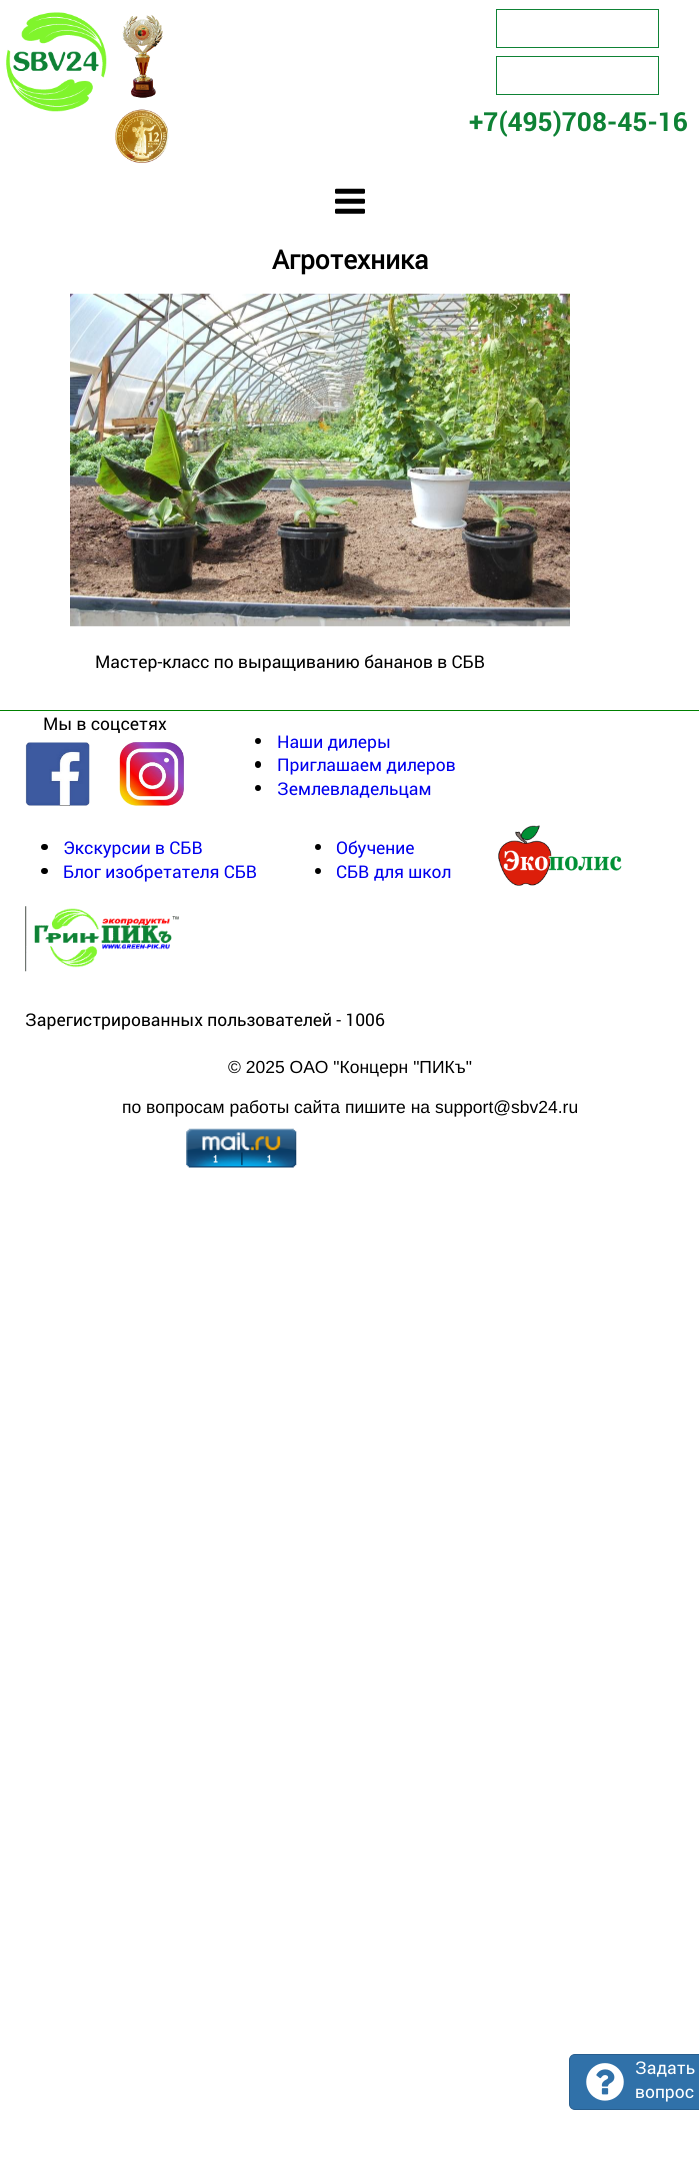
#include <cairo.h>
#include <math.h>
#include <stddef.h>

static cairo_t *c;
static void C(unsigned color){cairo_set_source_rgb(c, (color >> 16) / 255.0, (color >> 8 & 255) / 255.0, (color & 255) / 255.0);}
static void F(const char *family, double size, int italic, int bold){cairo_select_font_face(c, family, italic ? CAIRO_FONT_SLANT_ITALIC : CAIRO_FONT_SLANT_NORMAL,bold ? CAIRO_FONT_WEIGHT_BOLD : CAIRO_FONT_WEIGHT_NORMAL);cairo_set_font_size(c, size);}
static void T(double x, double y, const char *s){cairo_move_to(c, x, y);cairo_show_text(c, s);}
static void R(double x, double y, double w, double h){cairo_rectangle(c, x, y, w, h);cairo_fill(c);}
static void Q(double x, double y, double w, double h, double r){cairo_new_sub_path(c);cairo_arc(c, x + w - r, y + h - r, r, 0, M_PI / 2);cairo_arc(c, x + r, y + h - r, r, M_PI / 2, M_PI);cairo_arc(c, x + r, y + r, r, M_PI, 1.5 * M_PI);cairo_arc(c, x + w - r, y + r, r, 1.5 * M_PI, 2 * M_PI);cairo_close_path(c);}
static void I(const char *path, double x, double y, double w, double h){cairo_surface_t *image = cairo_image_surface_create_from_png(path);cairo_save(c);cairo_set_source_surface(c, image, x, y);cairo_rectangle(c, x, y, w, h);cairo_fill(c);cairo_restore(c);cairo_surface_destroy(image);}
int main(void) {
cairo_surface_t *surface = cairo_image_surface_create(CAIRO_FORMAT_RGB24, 699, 2160);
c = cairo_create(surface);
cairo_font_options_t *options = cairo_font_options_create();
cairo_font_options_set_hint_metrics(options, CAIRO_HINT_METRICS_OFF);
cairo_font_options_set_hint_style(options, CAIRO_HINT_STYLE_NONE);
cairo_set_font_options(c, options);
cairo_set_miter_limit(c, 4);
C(0xffffff);
cairo_paint(c);
I("1.png",6,12,101,100);
I("2.png",122,15,41,83);
I("3.png",115,109,54,54);
cairo_rectangle(c,496.5,9.5,162,38);
C(0x0e8235);
cairo_set_line_width(c,1);
cairo_stroke(c);
cairo_rectangle(c,496.5,56.5,162,38);
cairo_stroke(c);
F("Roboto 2",26.25,0,1);
T(469,131,"+7(495)708-45-16");
I("4.png",335,188,30,26);
F("Roboto",26.25,0,1);
C(0x000000);
T(272,269,"Агротехника");
I("5.png",70,293,500,334);
F("Roboto",17.5,0,0);
T(95,668,"Мастер-класс по выращиванию бананов в СБВ");
C(0x008000);
R(0,710,699,1);
C(0x000000);
T(43,730,"Мы в соцсетях");
I("6.png",25,742,65,64);
I("7.png",119,742,65,64);
cairo_arc(c,258,741,3,0,2 * M_PI);
cairo_fill(c);
C(0x0000ee);
T(277,748,"Наши дилеры");
C(0x000000);
Q(255,761,6,7,3);
cairo_fill(c);
C(0x0000ee);
T(277,771,"Приглашаем дилеров");
C(0x000000);
cairo_new_path(c);
cairo_arc(c,258,788,3,0,2 * M_PI);
cairo_fill(c);
C(0x0000ee);
T(277,795,"Землевладельцам");
C(0x000000);
Q(41,844,7,6,3);
cairo_fill(c);
C(0x0000ee);
T(63,854,"Экскурсии в СБВ");
C(0x000000);
Q(41,868,7,6,3);
cairo_fill(c);
C(0x0000ee);
T(63,878,"Блог изобретателя СБВ");
C(0x000000);
cairo_new_path(c);
cairo_arc(c,318,847,3,0,2 * M_PI);
cairo_fill(c);
C(0x0000ee);
T(336,854,"Обучение");
C(0x000000);
cairo_new_path(c);
cairo_arc(c,318,871,3,0,2 * M_PI);
cairo_fill(c);
C(0x0000ee);
T(336,878,"СБВ для школ");
I("8.png",498,825,124,61);
I("9.png",25,906,154,66);
C(0x000000);
T(25,1026,"Зарегистрированных пользователей - 1006");
F("Liberation Sans",17.5,0,0);
T(228,1073,"© 2025 ОАО \"Концерн \"ПИКъ\"");
T(122,1113,"по вопросам работы сайта пишите на support@sbv24.ru");
I("10.png",186,1128,111,40);
C(0x3071a9);
Q(569.5,2054.5,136,55,5.5);
cairo_fill_preserve(c);
C(0x285e8e);
cairo_stroke(c);
I("11.png",586,2063,38,38);
F("Roboto",17.5,0,0);
C(0xffffff);
T(635,2074,"Задать");
T(635,2098,"вопрос");
cairo_surface_write_to_png(surface, "o.png");
cairo_font_options_destroy(options);
cairo_destroy(c);
cairo_surface_destroy(surface);
return 0;
}
